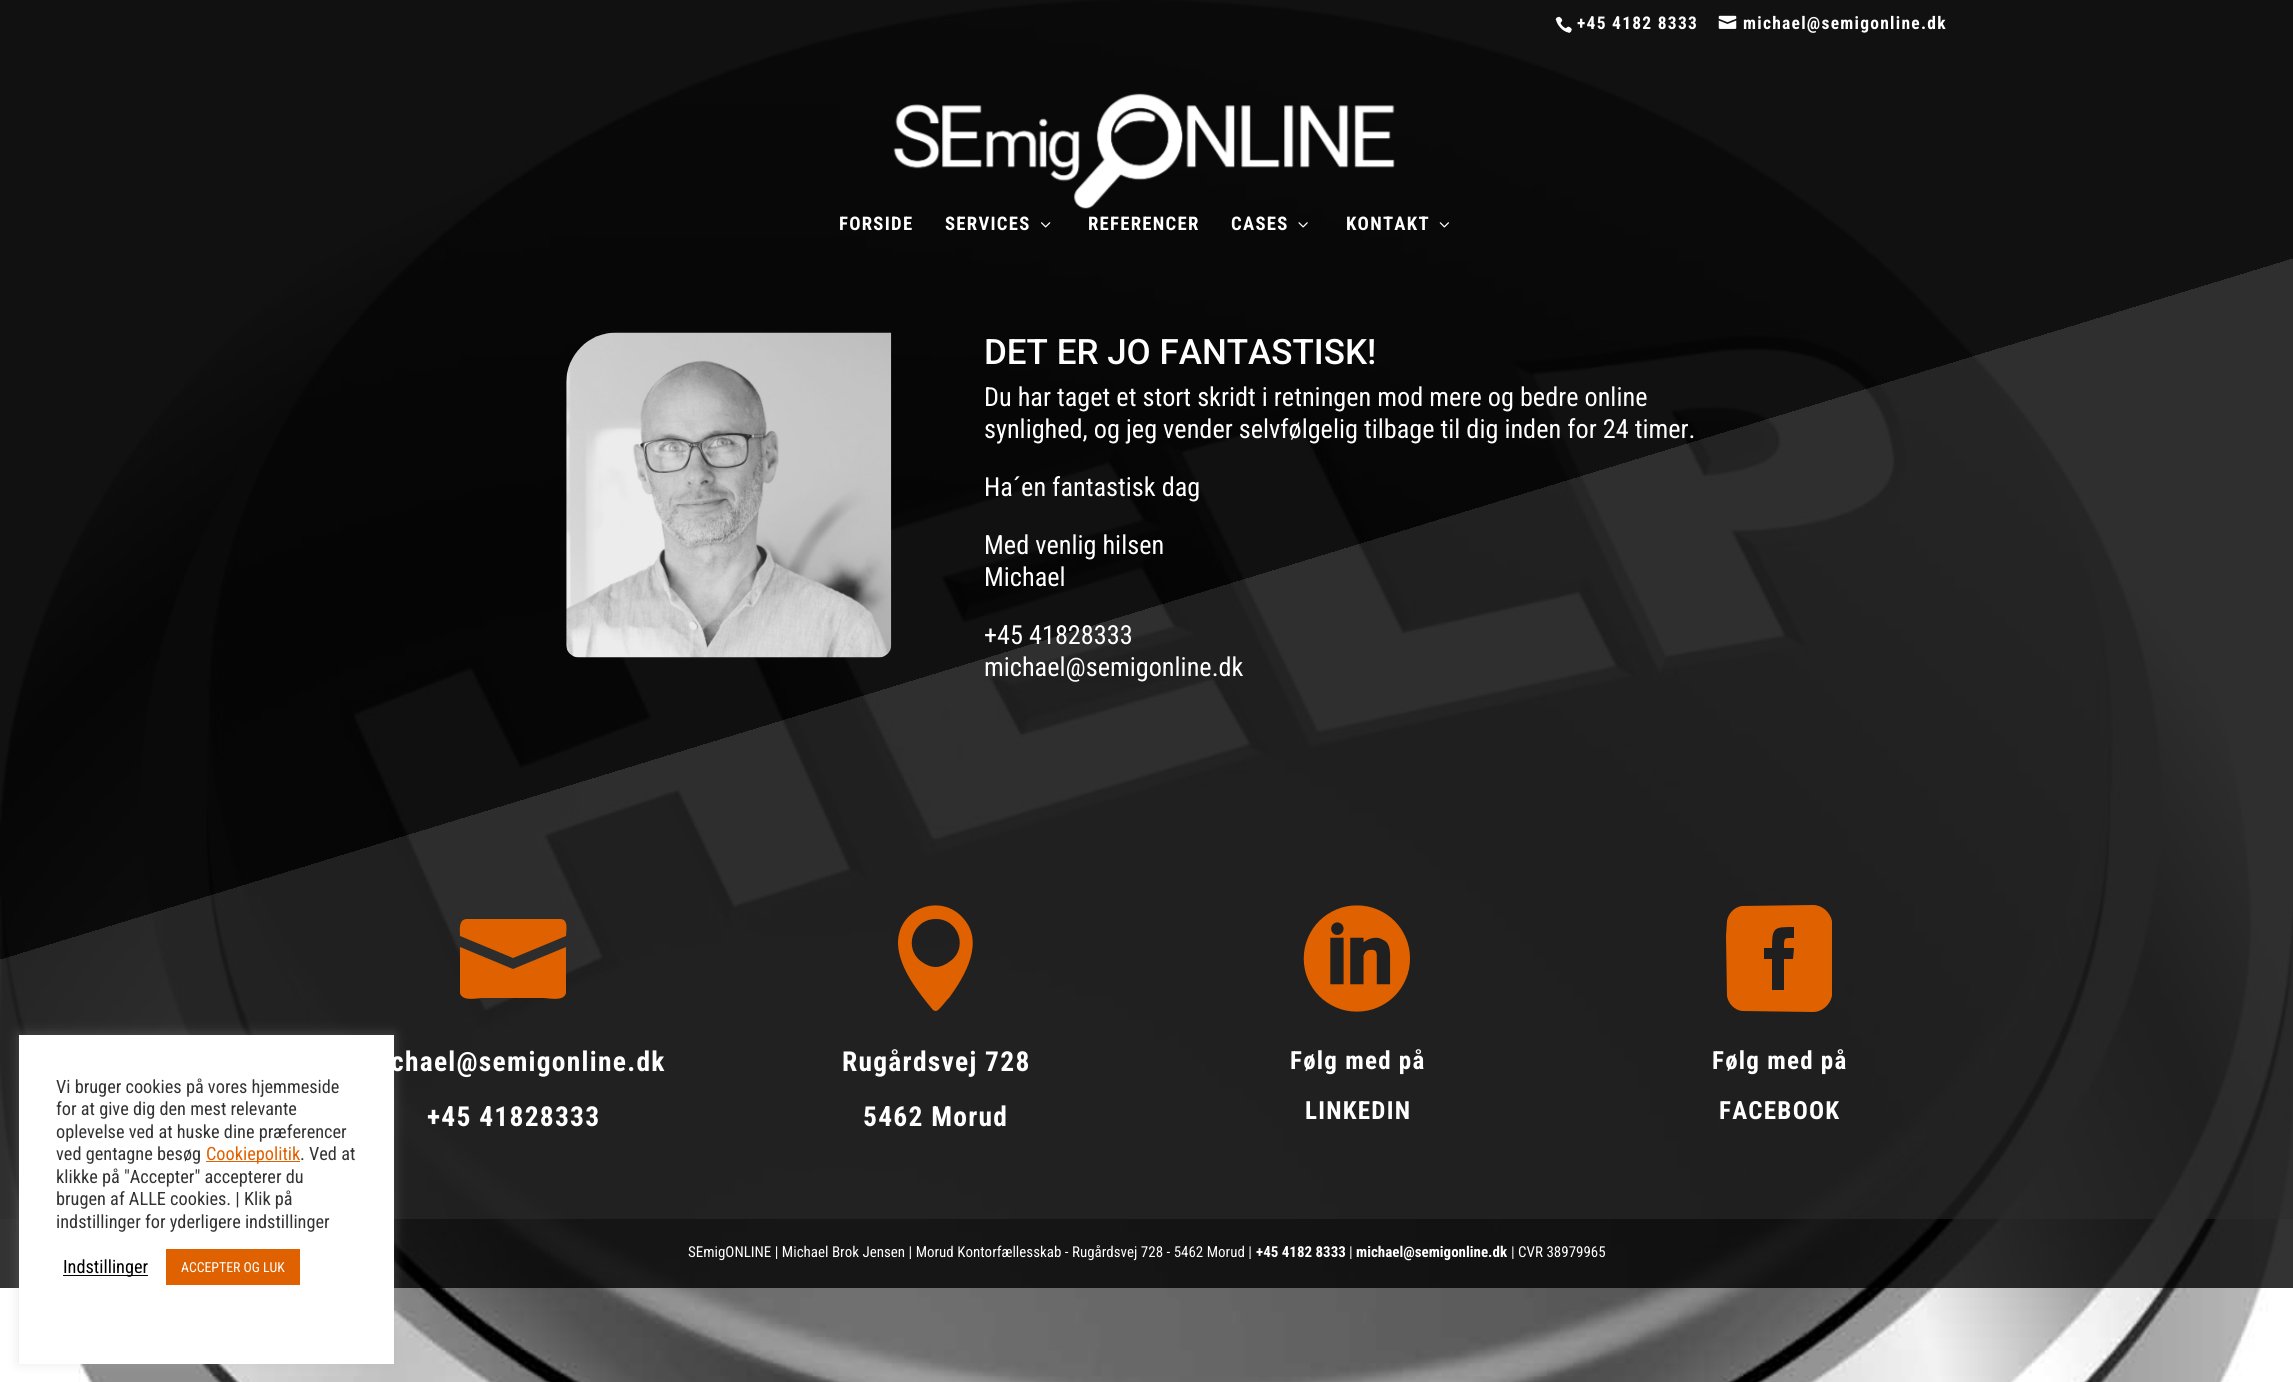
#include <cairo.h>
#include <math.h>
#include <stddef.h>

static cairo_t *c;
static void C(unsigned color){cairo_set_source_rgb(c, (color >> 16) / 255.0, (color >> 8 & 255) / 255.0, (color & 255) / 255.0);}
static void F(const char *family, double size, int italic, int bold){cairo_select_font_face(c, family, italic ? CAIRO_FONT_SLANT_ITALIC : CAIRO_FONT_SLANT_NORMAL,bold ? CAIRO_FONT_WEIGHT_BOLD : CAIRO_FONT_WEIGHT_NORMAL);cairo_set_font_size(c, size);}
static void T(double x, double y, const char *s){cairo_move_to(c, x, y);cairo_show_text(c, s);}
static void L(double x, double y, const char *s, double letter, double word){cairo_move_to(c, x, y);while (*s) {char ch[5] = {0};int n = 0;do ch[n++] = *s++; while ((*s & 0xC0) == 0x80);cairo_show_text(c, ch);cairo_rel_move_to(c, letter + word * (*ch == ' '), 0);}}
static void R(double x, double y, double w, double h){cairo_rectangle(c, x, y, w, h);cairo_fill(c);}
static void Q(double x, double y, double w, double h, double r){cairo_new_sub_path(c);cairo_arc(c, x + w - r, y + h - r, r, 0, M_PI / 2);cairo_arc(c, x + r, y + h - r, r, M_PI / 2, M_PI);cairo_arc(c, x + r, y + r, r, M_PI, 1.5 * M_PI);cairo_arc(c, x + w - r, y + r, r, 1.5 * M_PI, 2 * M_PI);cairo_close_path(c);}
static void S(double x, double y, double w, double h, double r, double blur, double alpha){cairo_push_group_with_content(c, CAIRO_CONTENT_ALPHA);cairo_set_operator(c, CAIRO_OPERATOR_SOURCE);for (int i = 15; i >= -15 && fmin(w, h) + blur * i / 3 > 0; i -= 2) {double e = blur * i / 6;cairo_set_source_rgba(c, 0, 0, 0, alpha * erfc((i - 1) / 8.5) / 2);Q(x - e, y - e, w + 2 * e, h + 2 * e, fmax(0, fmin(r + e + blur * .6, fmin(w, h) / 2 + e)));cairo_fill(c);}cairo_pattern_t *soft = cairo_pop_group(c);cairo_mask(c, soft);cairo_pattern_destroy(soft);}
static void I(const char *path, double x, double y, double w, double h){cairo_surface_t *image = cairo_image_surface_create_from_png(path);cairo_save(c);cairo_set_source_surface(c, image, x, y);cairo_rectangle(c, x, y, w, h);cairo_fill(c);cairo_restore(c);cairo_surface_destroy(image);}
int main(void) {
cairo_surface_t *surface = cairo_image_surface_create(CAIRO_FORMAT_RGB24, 2293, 1382);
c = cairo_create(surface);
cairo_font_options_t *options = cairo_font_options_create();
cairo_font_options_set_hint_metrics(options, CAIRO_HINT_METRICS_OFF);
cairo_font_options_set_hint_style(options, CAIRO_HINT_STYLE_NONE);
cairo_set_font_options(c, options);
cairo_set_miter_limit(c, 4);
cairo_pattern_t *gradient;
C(0xffffff);
cairo_paint(c);
I("1.png",0,0,2293,1382);
cairo_set_source_rgba(c,0,0,0,0.55);
R(0,0,2293,1219);
gradient = cairo_pattern_create_linear(878,-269,1415,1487);
cairo_pattern_add_color_stop_rgba(gradient,.5,0,0,0,.85);
cairo_pattern_add_color_stop_rgba(gradient,.5,0.118,0.118,0.118,.8);
cairo_set_source(c,gradient);
cairo_pattern_destroy(gradient);
R(0,0,2293,1219);
cairo_set_source_rgba(c,0,0,0,0.8);
R(0,1219,2293,69);
C(0xacabab);
S(19,1034,375,329,0,6,.3);
C(0xffffff);
R(19,1035,375,329);
F("Roboto Condensed",18.3,0,0);
C(0x333333);
T(56,1093,"Vi bruger cookies på vores hjemmeside");
T(56,1115,"for at give dig den mest relevante");
T(56,1138,"oplevelse ved at huske dine præferencer");
T(56,1160,"ved gentagne besøg");
C(0xe06100);
R(206,1161,94,1);
T(206,1160,"Cookiepolitik");
C(0x333333);
T(300,1160,". Ved at");
T(56,1183,"klikke på \"Accepter\" accepterer du");
T(56,1205,"brugen af ALLE cookies. | Klik på");
T(56,1228,"indstillinger for yderligere indstillinger");
C(0x000000);
R(63,1275,85,1);
T(63,1273,"Indstillinger");
C(0xe06100);
R(166,1249,134,36);
F("Roboto Condensed",13.75,0,0);
C(0xffffff);
T(181,1272,"ACCEPTER OG LUK");
I("2.png",1555,16,17,17);
F("Roboto Condensed",17.5,0,1);
L(1577,29,"+45 4182 8333",1.25,0);
I("3.png",1718,15,19,14);
L(1743,29,"michael@semigonline.dk",1.25,0);
I("4.png",893,93,502,116);
F("Roboto Condensed",18.75,0,1);
L(839,230,"FORSIDE",1.25,0);
L(945,230,"SERVICES",1.25,0);
I("5.png",1041,222,10,6);
L(1088,230,"REFERENCER",1.25,0);
L(1231,230,"CASES",1.25,0);
I("6.png",1298,222,10,6);
L(1346,230,"KONTAKT",1.25,0);
I("7.png",1439,222,10,6);
I("8.png",566,332,326,326);
F("Roboto Medium",35,0,0);
T(984,364,"DET ER JO FANTASTISK!");
F("Roboto Condensed",26.25,0,0);
T(984,406,"Du har taget et stort skridt i retningen mod mere og bedre online");
T(984,438,"synlighed, og jeg vender selvfølgelig tilbage til dig inden for 24 timer.");
T(984,496,"Ha´en fantastisk dag");
T(984,554,"Med venlig hilsen");
T(984,586,"Michael");
T(984,644,"+45 41828333");
T(984,676,"michael@semigonline.dk");
C(0xe06100);
cairo_new_path(c);
cairo_move_to(c,560,919);
cairo_line_to(c,467,919);
cairo_curve_to(c,458,919,460,931,460,936);
cairo_line_to(c,513,958);
cairo_line_to(c,566,936);
cairo_curve_to(c,566,931,569,919,560,919);
cairo_close_path(c);
cairo_move_to(c,460,947);
cairo_line_to(c,460,993);
cairo_curve_to(c,462,1002,478,998,482,998);
cairo_line_to(c,544,998);
cairo_curve_to(c,548,998,564,1002,566,993);
cairo_line_to(c,566,947);
cairo_line_to(c,513,969);
cairo_close_path(c);
cairo_fill(c);
F("Roboto Condensed",27.5,0,1);
C(0xffffff);
L(391,1071,"chael@semigonline.dk",1.25,0);
L(427,1126,"+45 41828333",1.25,0);
C(0xe06100);
cairo_new_path(c);
cairo_move_to(c,933,1010);
cairo_line_to(c,935,1011);
cairo_line_to(c,936,1011);
cairo_curve_to(c,939,1011,947,999,949,998);
cairo_curve_to(c,965,976,985,942,963,918);
cairo_curve_to(c,940,892,897,909,898,944);
cairo_curve_to(c,899,968,918,992,933,1010);
cairo_close_path(c);
cairo_move_to(c,936,919);
cairo_curve_to(c,959,919,969,949,949,962);
cairo_curve_to(c,945,965,940,967,936,967);
cairo_curve_to(c,931,967,926,965,922,962);
cairo_curve_to(c,903,949,912,919,936,919);
cairo_close_path(c);
cairo_fill(c);
C(0xffffff);
L(842,1071,"Rugårdsvej 728",1.25,0);
L(863,1126,"5462 Morud",1.25,0);
I("9.png",1303,905,107,107);
F("Roboto Condensed",25,0,1);
L(1290,1069,"Følg med på",1.25,0);
L(1305,1119,"LINKEDIN",1.25,0);
C(0xe06100);
cairo_new_path(c);
cairo_move_to(c,1813,905);
cairo_line_to(c,1742,906);
cairo_curve_to(c,1734,907,1728,914,1727,921);
cairo_line_to(c,1726,936);
cairo_line_to(c,1727,996);
cairo_curve_to(c,1728,1003,1734,1010,1742,1011);
cairo_line_to(c,1813,1012);
cairo_curve_to(c,1822,1012,1830,1005,1832,996);
cairo_line_to(c,1832,981);
cairo_line_to(c,1832,921);
cairo_curve_to(c,1830,912,1822,905,1813,905);
cairo_close_path(c);
cairo_move_to(c,1793,959);
cairo_line_to(c,1784,959);
cairo_line_to(c,1784,990);
cairo_line_to(c,1772,990);
cairo_line_to(c,1772,959);
cairo_line_to(c,1764,959);
cairo_line_to(c,1764,948);
cairo_line_to(c,1772,948);
cairo_curve_to(c,1772,927,1774,927,1794,927);
cairo_line_to(c,1794,938);
cairo_curve_to(c,1784,938,1784,937,1784,948);
cairo_line_to(c,1794,948);
cairo_close_path(c);
cairo_fill(c);
C(0xffffff);
L(1712,1069,"Følg med på",1.25,0);
L(1719,1119,"FACEBOOK",1.25,0);
F("Roboto Condensed",15,0,0);
T(688,1257,"SEmigONLINE | Michael Brok Jensen | Morud Kontorfællesskab - Rugårdsvej 728 - 5462 Morud |");
F("Roboto Condensed",15,0,1);
T(1256,1257,"+45 4182 8333");
F("Roboto Condensed",15,0,0);
T(1349,1257,"|");
F("Roboto Condensed",15,0,1);
T(1356,1257,"michael@semigonline.dk");
F("Roboto Condensed",15,0,0);
T(1511,1257,"| CVR 38979965");
cairo_surface_write_to_png(surface, "o.png");
cairo_font_options_destroy(options);
cairo_destroy(c);
cairo_surface_destroy(surface);
return 0;
}
